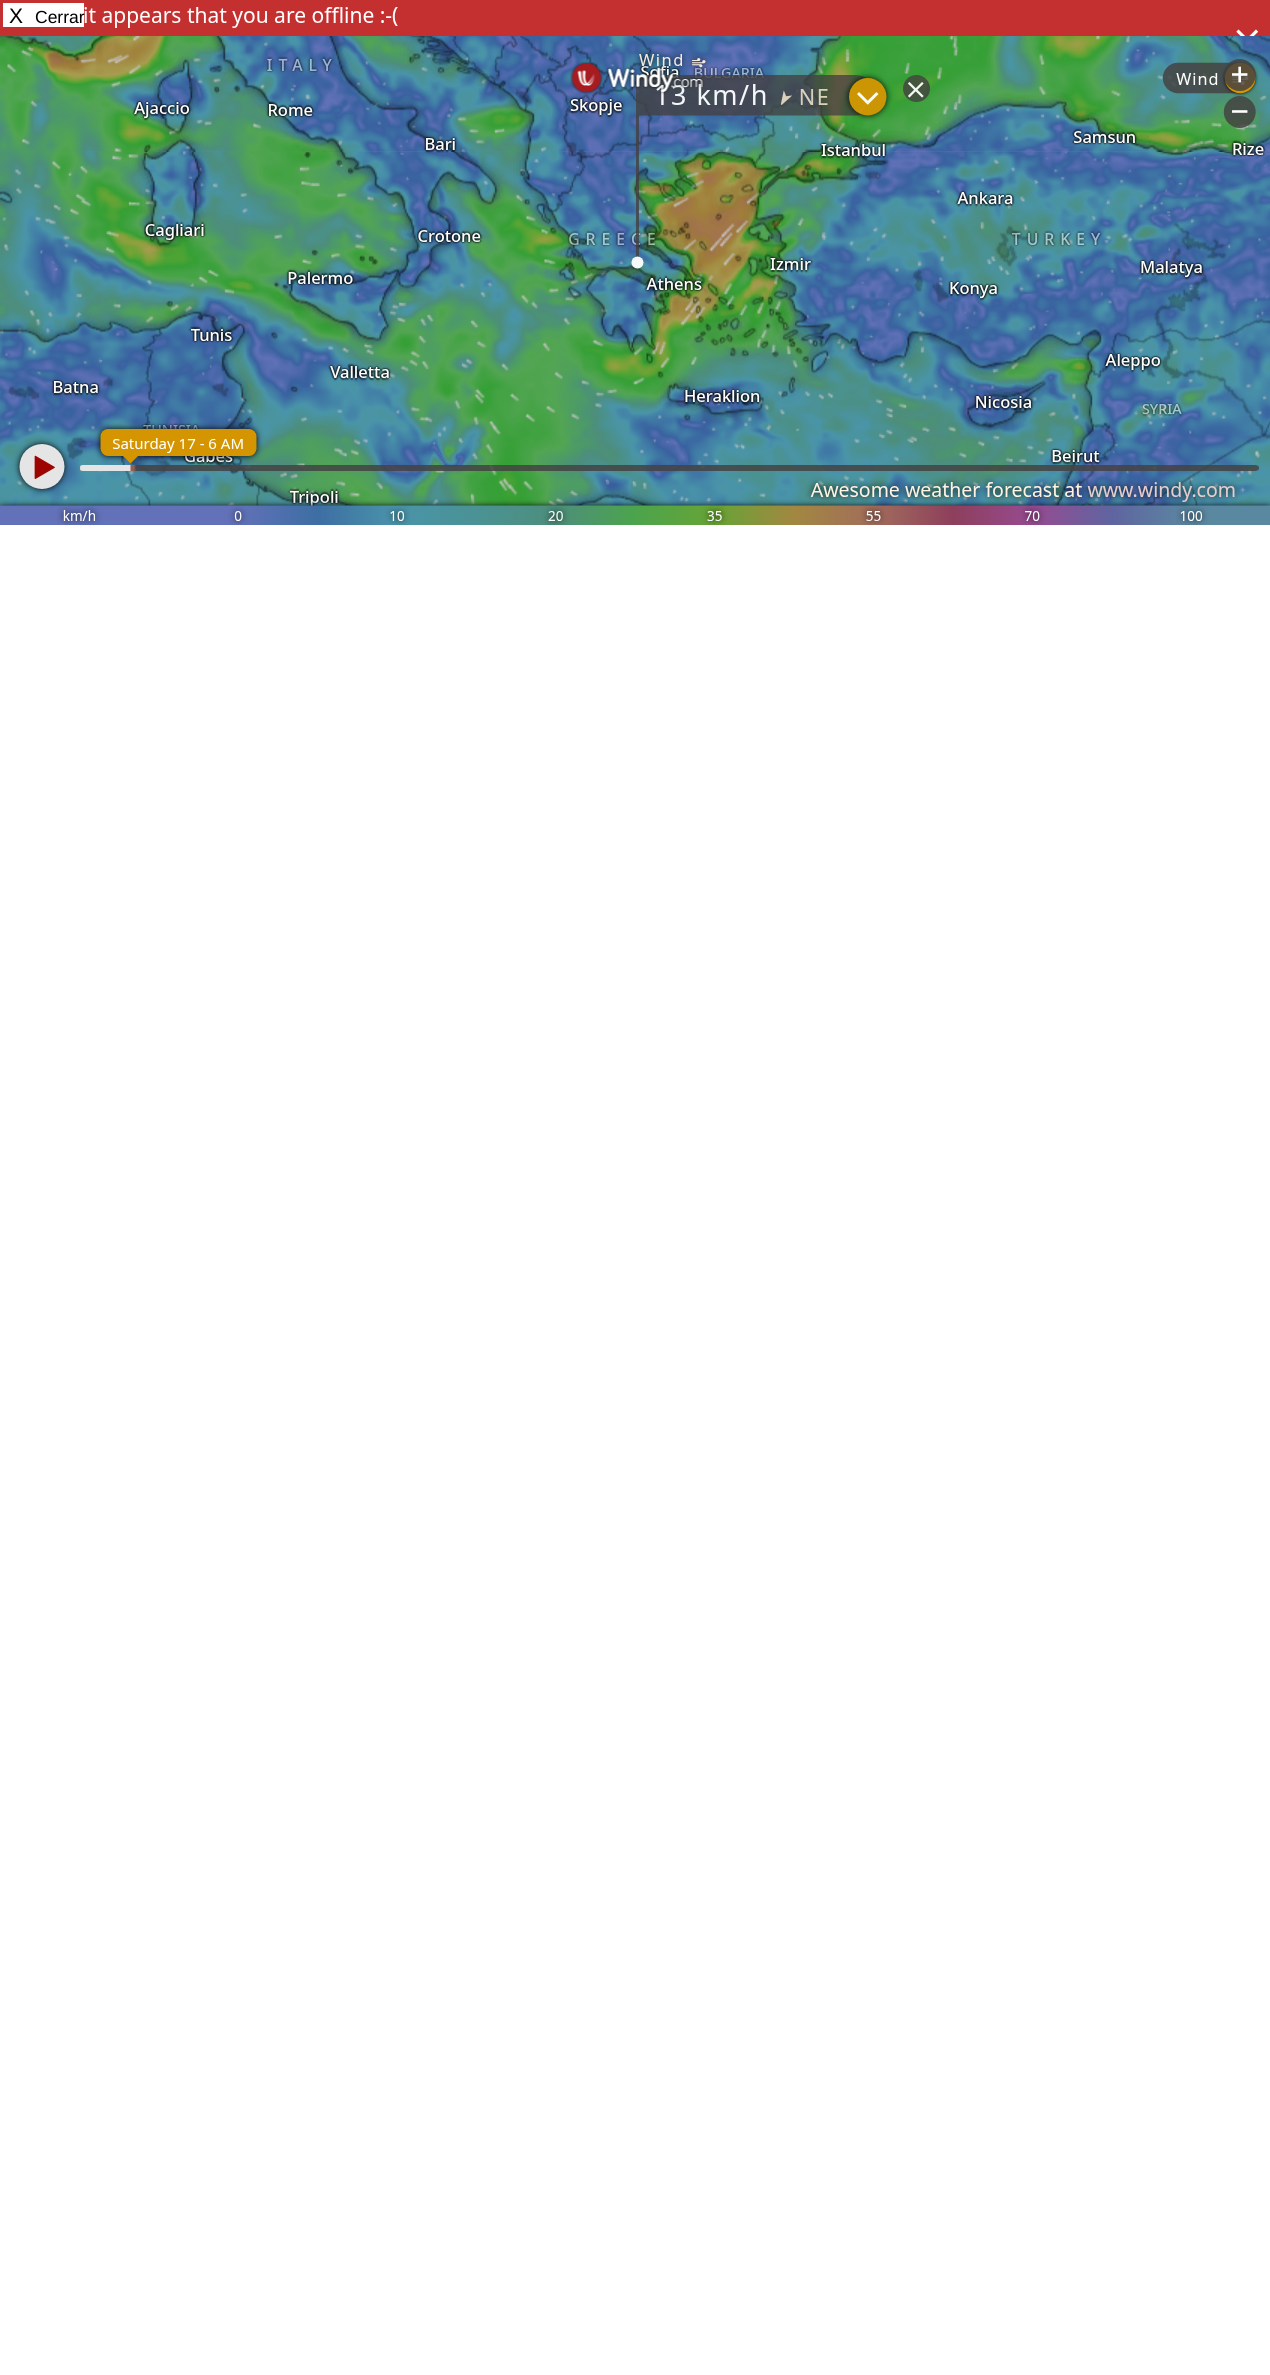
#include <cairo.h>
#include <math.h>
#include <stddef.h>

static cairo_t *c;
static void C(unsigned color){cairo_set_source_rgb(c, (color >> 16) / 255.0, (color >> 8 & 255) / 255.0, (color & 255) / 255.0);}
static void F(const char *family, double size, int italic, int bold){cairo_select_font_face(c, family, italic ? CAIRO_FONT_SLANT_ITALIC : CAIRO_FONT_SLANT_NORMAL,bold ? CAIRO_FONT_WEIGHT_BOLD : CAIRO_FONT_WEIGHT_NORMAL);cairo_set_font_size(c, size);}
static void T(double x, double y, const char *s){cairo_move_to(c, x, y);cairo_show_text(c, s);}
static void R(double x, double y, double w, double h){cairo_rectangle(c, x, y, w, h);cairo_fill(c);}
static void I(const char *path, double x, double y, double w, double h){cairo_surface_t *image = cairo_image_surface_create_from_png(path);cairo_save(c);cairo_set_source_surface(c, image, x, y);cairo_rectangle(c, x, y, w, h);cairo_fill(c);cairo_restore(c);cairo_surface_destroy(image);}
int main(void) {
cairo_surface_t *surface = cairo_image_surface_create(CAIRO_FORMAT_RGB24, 1270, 2375);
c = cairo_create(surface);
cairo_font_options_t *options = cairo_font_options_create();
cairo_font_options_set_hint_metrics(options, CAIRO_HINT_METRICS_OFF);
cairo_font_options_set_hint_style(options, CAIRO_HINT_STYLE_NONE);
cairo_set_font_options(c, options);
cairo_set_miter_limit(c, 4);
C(0xffffff);
cairo_paint(c);
I("1.png",0,0,1270,525);
C(0xffffff);
R(3,3,81,24);
F("Liberation Sans",21,0,0);
C(0x000000);
T(9,23,"X");
F("Liberation Sans",17.5,0,0);
T(35,23,"Cerrar");
I("2.png",632,54,295,215);
cairo_surface_write_to_png(surface, "o.png");
cairo_font_options_destroy(options);
cairo_destroy(c);
cairo_surface_destroy(surface);
return 0;
}
